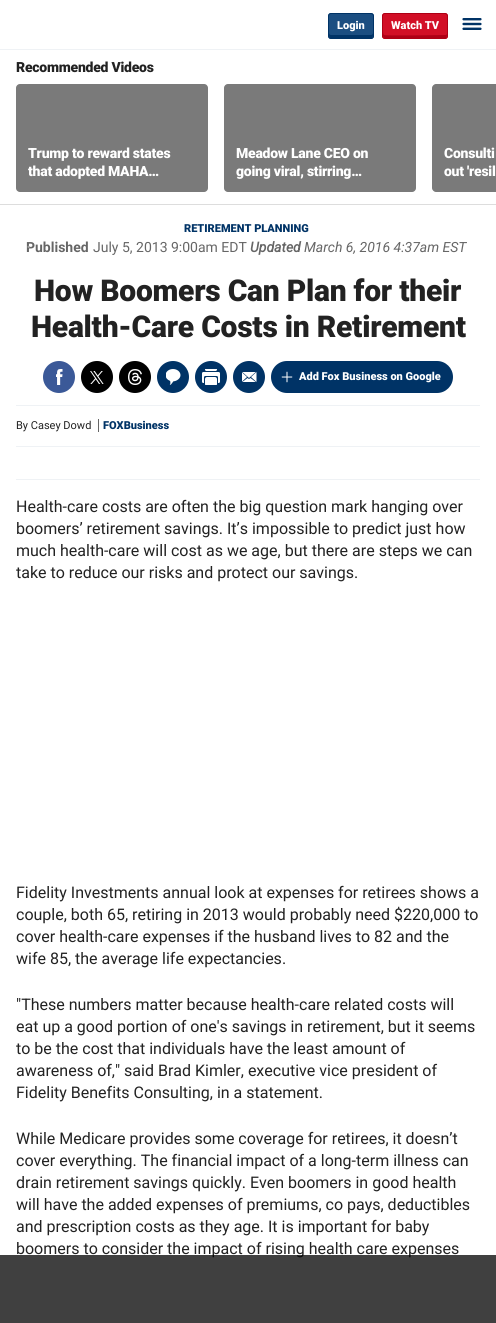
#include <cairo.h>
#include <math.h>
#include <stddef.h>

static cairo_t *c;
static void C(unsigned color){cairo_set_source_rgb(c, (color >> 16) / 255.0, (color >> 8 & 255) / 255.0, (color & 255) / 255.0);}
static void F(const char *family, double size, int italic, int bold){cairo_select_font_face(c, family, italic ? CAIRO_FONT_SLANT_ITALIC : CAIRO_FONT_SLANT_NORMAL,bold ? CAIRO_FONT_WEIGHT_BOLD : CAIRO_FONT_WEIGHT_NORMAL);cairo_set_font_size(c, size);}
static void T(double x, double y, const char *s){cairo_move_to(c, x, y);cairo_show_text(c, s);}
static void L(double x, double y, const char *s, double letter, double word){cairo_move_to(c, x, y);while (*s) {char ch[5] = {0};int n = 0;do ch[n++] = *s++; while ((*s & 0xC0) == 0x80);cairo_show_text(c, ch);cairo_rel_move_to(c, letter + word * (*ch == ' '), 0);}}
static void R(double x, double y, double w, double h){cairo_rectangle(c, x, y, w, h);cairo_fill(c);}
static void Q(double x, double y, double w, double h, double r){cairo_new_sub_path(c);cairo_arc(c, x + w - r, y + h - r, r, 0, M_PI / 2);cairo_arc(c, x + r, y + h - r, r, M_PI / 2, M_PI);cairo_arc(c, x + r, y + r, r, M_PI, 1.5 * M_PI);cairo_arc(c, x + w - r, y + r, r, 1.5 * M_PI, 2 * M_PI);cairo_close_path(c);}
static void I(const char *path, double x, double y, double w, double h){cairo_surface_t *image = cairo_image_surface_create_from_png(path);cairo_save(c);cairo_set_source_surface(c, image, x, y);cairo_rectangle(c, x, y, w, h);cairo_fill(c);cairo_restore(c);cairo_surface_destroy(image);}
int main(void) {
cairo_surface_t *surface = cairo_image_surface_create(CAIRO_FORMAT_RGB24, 496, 1323);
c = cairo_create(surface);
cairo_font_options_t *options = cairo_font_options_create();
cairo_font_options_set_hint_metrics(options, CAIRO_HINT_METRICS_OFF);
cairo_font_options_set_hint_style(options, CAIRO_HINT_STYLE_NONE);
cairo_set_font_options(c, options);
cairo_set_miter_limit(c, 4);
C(0xffffff);
cairo_paint(c);
C(0xeff2f5);
R(0,49,496,1);
C(0x1b4e81);
Q(328,13,46,26,3);
cairo_fill(c);
C(0x003366);
cairo_new_path(c);
cairo_move_to(c,329,33);
cairo_curve_to(c,329,40,330,38,338,38);
cairo_line_to(c,364,38);
cairo_curve_to(c,372,38,373,40,373,33);
cairo_curve_to(c,373,34,372,35,371,35);
cairo_line_to(c,331,35);
cairo_curve_to(c,330,35,329,34,329,33);
cairo_close_path(c);
cairo_fill(c);
Q(328.5,13.5,45,25,2.5);
cairo_set_line_width(c,1);
cairo_stroke(c);
F("Roboto Black",11,0,0);
C(0xffffff);
T(337,29,"Login");
C(0xd20f26);
Q(382,13,66,26,3);
cairo_fill(c);
C(0xae0015);
cairo_new_path(c);
cairo_move_to(c,383,30);
cairo_curve_to(c,383,40,382,38,395,38);
cairo_line_to(c,435,38);
cairo_curve_to(c,443,38,447,41,447,34);
cairo_line_to(c,446,35);
cairo_curve_to(c,446,35,385,36,384,35);
cairo_curve_to(c,383,34,383,31,383,30);
cairo_close_path(c);
cairo_fill(c);
Q(382.5,13.5,65,25,2.5);
cairo_stroke(c);
C(0xffffff);
T(391,29,"Watch TV");
I("1.png",462,18,20,12);
C(0xdddddd);
R(0,204,496,1);
F("Roboto Black",14,0,0);
C(0x222222);
L(16,72,"Recommended Videos",-.25,0);
C(0xf4f4f4);
Q(16,84,192,108,4);
cairo_fill(c);
cairo_set_source_rgba(c,0,0,0,0.5);
Q(16,84,192,108,4);
cairo_fill(c);
C(0xffffff);
L(28,158,"Trump to reward states",-.25,0);
L(28,176,"that adopted MAHA…",-.25,0);
C(0xf4f4f4);
Q(224,84,192,108,4);
cairo_fill(c);
cairo_set_source_rgba(c,0,0,0,0.5);
Q(224,84,192,108,4);
cairo_fill(c);
C(0xffffff);
L(236,158,"Meadow Lane CEO on",-.25,0);
L(236,176,"going viral, stirring…",-.25,0);
C(0xf4f4f4);
cairo_new_path(c);
cairo_move_to(c,436,84);
cairo_line_to(c,496,84);
cairo_line_to(c,496,192);
cairo_line_to(c,436,192);
cairo_curve_to(c,434,192,432,190,432,188);
cairo_line_to(c,432,88);
cairo_curve_to(c,432,86,434,84,436,84);
cairo_close_path(c);
cairo_fill(c);
cairo_set_source_rgba(c,0,0,0,0.5);
cairo_new_path(c);
cairo_move_to(c,436,84);
cairo_line_to(c,496,84);
cairo_line_to(c,496,192);
cairo_line_to(c,436,192);
cairo_curve_to(c,434,192,432,190,432,188);
cairo_line_to(c,432,88);
cairo_curve_to(c,432,86,434,84,436,84);
cairo_close_path(c);
cairo_fill(c);
C(0xffffff);
L(444,158,"Consulti",-.25,0);
L(444,176,"out 'resil",-.25,0);
F("Roboto Black",11,0,0);
C(0x003366);
T(184,232,"RETIREMENT PLANNING");
F("Roboto",14,0,1);
C(0x666666);
T(26,252,"Published");
F("Roboto",14,0,0);
T(93,252,"July 5, 2013 9:00am EDT");
F("Roboto",14,1,1);
T(250,252,"Updated");
F("Roboto",14,1,0);
T(304,252,"March 6, 2016 4:37am EST");
F("Roboto",20,0,0);
C(0xa0a0a0);
T(26,254,"·");
F("Roboto Black",30,0,0);
C(0x222222);
L(34,301,"How Boomers Can Plan for their",-.25,0);
L(31,337,"Health-Care Costs in Retirement",-.25,0);
C(0xeff2f5);
R(16,446,464,1);
C(0x3b5998);
cairo_new_path(c);
cairo_arc(c,59,377,16,0,2 * M_PI);
cairo_fill(c);
I("2.png",56,369,7,16);
C(0x000000);
cairo_arc(c,97,377,16,0,2 * M_PI);
cairo_fill(c);
I("3.png",90,371,14,13);
cairo_arc(c,135,377,16,0,2 * M_PI);
cairo_fill(c);
I("4.png",128,369,14,16);
C(0x003366);
cairo_arc(c,173,377,16,0,2 * M_PI);
cairo_fill(c);
I("5.png",166,369,15,16);
cairo_arc(c,211,377,16,0,2 * M_PI);
cairo_fill(c);
I("6.png",202,369,18,16);
cairo_arc(c,249,377,16,0,2 * M_PI);
cairo_fill(c);
I("7.png",242,372,15,10);
Q(271,361,182,32,16);
cairo_fill(c);
I("8.png",281,371,12,12);
F("Roboto Black",11,0,0);
C(0xffffff);
T(299,380,"Add Fox Business on Google");
C(0xeff2f5);
R(16,405,464,1);
F("Roboto",11,0,0);
C(0x222222);
T(16,429,"By Casey Dowd");
F("Roboto Black",11,0,0);
C(0x003366);
T(103,429,"FOXBusiness");
C(0x666666);
R(98,419,1,13);
C(0xeff2f5);
R(16,479,464,1);
F("Roboto",16,0,0);
C(0x222222);
T(16,512,"Health-care costs are often the big question mark hanging over");
T(16,534,"boomers’ retirement savings. It’s impossible to predict just how");
T(16,556,"much health-care will cost as we age, but there are steps we can");
T(16,578,"take to reduce our risks and protect our savings.");
T(16,898,"Fidelity Investments annual look at expenses for retirees shows a");
T(16,920,"couple, both 65, retiring in 2013 would probably need $220,000 to");
T(16,942,"cover health-care expenses if the husband lives to 82 and the");
T(16,964,"wife 85, the average life expectancies.");
T(16,1010,"\"These numbers matter because health-care related costs will");
T(16,1032,"eat up a good portion of one's savings in retirement, but it seems");
T(16,1054,"to be the cost that individuals have the least amount of");
T(16,1076,"awareness of,\" said Brad Kimler, executive vice president of");
T(16,1098,"Fidelity Benefits Consulting, in a statement.");
T(16,1144,"While Medicare provides some coverage for retirees, it doesn’t");
T(16,1166,"cover everything. The financial impact of a long-term illness can");
T(16,1188,"drain retirement savings quickly. Even boomers in good health");
T(16,1210,"will have the added expenses of premiums, co pays, deductibles");
T(16,1232,"and prescription costs as they age. It is important for baby");
T(16,1254,"boomers to consider the impact of rising health care expenses");
cairo_set_source_rgba(c,0,0,0,0.75);
R(0,1255,496,68);
cairo_surface_write_to_png(surface, "o.png");
cairo_font_options_destroy(options);
cairo_destroy(c);
cairo_surface_destroy(surface);
return 0;
}
